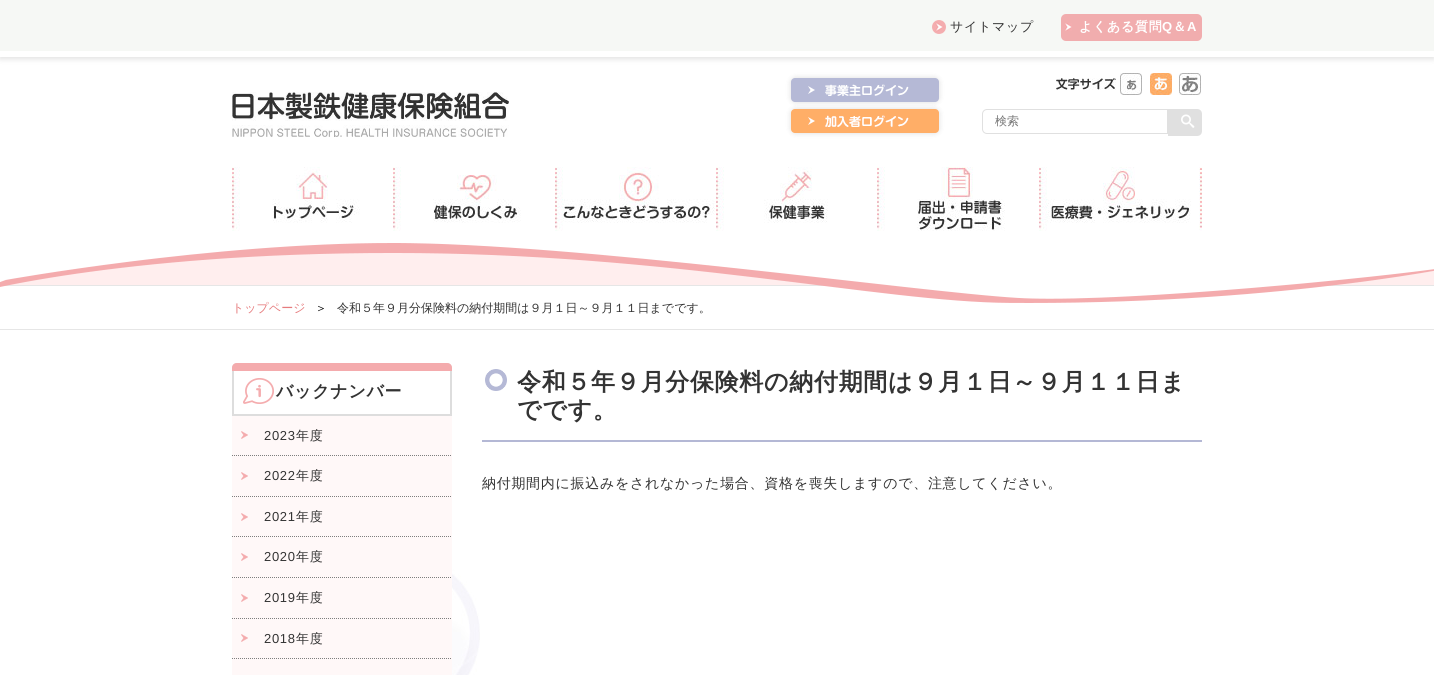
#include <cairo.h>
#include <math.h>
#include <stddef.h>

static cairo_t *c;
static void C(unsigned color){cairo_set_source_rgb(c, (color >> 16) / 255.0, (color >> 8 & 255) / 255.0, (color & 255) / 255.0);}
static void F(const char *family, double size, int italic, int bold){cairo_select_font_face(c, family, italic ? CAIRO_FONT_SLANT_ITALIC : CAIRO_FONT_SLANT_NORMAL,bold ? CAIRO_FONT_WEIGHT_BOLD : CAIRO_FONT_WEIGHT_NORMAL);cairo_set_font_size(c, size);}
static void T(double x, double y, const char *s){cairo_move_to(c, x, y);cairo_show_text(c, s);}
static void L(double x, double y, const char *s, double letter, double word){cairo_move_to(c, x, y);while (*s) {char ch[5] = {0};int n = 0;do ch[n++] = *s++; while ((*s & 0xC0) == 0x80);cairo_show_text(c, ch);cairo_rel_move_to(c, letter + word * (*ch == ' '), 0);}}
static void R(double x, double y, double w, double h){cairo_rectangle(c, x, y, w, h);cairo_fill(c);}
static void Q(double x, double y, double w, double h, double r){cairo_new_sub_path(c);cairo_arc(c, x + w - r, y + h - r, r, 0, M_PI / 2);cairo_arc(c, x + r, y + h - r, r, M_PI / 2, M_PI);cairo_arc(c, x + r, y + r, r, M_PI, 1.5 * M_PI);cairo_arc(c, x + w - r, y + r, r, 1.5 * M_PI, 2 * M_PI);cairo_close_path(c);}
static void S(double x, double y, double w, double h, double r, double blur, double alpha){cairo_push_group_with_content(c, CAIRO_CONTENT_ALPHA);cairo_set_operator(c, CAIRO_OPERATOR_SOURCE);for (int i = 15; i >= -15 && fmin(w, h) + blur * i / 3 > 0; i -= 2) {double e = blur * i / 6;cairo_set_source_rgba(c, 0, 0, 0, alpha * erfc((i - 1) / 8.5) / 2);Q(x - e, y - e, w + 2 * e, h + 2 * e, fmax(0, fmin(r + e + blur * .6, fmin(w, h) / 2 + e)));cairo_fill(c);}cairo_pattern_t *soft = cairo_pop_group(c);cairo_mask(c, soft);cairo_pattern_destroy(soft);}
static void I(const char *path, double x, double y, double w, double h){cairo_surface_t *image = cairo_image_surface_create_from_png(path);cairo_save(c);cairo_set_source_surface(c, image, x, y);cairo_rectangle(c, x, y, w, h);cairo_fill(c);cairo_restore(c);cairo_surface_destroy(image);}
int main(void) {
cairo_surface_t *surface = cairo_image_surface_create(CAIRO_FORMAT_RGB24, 1434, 675);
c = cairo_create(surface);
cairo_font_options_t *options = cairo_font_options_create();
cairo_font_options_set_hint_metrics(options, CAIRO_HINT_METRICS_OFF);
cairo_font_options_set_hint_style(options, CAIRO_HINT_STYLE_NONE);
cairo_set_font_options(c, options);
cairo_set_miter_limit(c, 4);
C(0xffffff);
cairo_paint(c);
I("1.png",452,430,28,245);
C(0x000000);
S(0,2,1434,57,0,3,.12);
C(0xf6f8f5);
R(0,0,1434,51);
C(0xffffff);
R(0,51,1434,6);
I("2.png",932,20,14,14);
F("WenQuanYi Zen Hei Medium",13,0,0);
C(0x333333);
L(950,31,"サイトマップ",.7,0);
C(0xf1adae);
Q(1061,14,141,27,5);
cairo_fill(c);
I("3.png",1065,23,7,8);
F("WenQuanYi Zen Hei",13,0,1);
C(0xffffff);
L(1079,31,"よくある質問",.7,0);
F("Liberation Sans",13,0,1);
L(1162,31,"Q",.7,0);
F("WenQuanYi Zen Hei",13,0,1);
L(1173,31,"＆",.7,0);
F("Liberation Sans",13,0,1);
L(1187,31,"A",.7,0);
C(0x000000);
S(790,77,150,26,6,2.5,.1);
S(790,108,150,26,6,2.5,.1);
I("4.png",791,78,148,24);
I("5.png",791,109,148,24);
I("6.png",1056,78,60,12);
I("7.png",1120,73,22,22);
I("8.png",1150,73,22,22);
I("9.png",1179,73,22,22);
I("10.png",232,92,277,45);
cairo_new_path(c);
cairo_move_to(c,987,109.5);
cairo_line_to(c,1167.5,109.5);
cairo_line_to(c,1167.5,133.5);
cairo_line_to(c,987,133.5);
cairo_curve_to(c,984.5,133.5,982.5,131.5,982.5,129);
cairo_line_to(c,982.5,114);
cairo_curve_to(c,982.5,111.5,984.5,109.5,987,109.5);
cairo_close_path(c);
C(0xe0e0e0);
cairo_set_line_width(c,1);
cairo_stroke(c);
F("WenQuanYi Zen Hei Medium",12,0,0);
C(0x757575);
T(995,125,"検索");
C(0xe0e0e0);
cairo_new_path(c);
cairo_move_to(c,1168,109);
cairo_line_to(c,1197,109);
cairo_curve_to(c,1200,109,1202,111,1202,114);
cairo_line_to(c,1202,131);
cairo_curve_to(c,1202,134,1200,136,1197,136);
cairo_line_to(c,1168,136);
cairo_close_path(c);
cairo_fill(c);
I("11.png",1181,114,14,14);
I("12.png",232,167,128,64);
I("13.png",393,167,128,64);
I("14.png",555,167,160,64);
I("15.png",716,167,112,64);
I("16.png",877,167,128,64);
I("17.png",1039,167,163,64);
C(0xe6e6e6);
R(0,285,1434,1);
C(0xffeeee);
R(9,253,1425,32);
C(0xe67c7e);
T(232,312,"トップページ");
C(0x333333);
T(337,312,"令和５年９月分保険料の納付期間は９月１日～９月１１日までです。");
I("18.png",0,243,1434,60);
C(0xe6e6e6);
R(0,329,1434,1);
C(0x000000);
T(315,312,"＞");
I("19.png",243,378,31,26);
cairo_new_path(c);
cairo_move_to(c,237,364);
cairo_line_to(c,447,364);
cairo_curve_to(c,449,364,451,366,451,368);
cairo_line_to(c,451,415);
cairo_line_to(c,233,415);
cairo_line_to(c,233,368);
cairo_curve_to(c,233,366,235,364,237,364);
cairo_close_path(c);
C(0xdddddd);
cairo_set_line_width(c,2);
cairo_stroke(c);
C(0xf4abad);
cairo_new_path(c);
cairo_move_to(c,237,363);
cairo_line_to(c,447,363);
cairo_curve_to(c,450,363,452,365,452,368);
cairo_line_to(c,452,371);
cairo_line_to(c,232,371);
cairo_line_to(c,232,368);
cairo_curve_to(c,232,365,234,363,237,363);
cairo_close_path(c);
cairo_fill(c);
F("WenQuanYi Zen Hei",17,0,1);
C(0x333333);
L(276,397,"バックナンバー",.7,0);
C(0xfff8f8);
R(232,416,220,259);
cairo_new_path(c);
cairo_move_to(c,232,455.5);
cairo_line_to(c,452,455.5);
C(0x7e7e7e);
cairo_set_line_width(c,1);
cairo_set_dash(c,(double[]){1,1},2,0);
cairo_stroke(c);
I("20.png",241,431,7,8);
F("Liberation Sans",13,0,0);
C(0x333333);
L(264,440,"2023",.7,0);
F("WenQuanYi Zen Hei Medium",13,0,0);
L(296,440,"年度",.7,0);
cairo_new_path(c);
cairo_move_to(c,232,496.5);
cairo_line_to(c,452,496.5);
C(0x7e7e7e);
cairo_stroke(c);
I("20.png",241,472,7,8);
F("Liberation Sans",13,0,0);
C(0x333333);
L(264,480,"2022",.7,0);
F("WenQuanYi Zen Hei Medium",13,0,0);
L(296,480,"年度",.7,0);
cairo_new_path(c);
cairo_move_to(c,232,536.5);
cairo_line_to(c,452,536.5);
C(0x7e7e7e);
cairo_stroke(c);
I("20.png",241,513,7,8);
F("Liberation Sans",13,0,0);
C(0x333333);
L(264,521,"2021",.7,0);
F("WenQuanYi Zen Hei Medium",13,0,0);
L(296,521,"年度",.7,0);
cairo_new_path(c);
cairo_move_to(c,232,577.5);
cairo_line_to(c,452,577.5);
C(0x7e7e7e);
cairo_stroke(c);
I("20.png",241,553,7,8);
F("Liberation Sans",13,0,0);
C(0x333333);
L(264,561,"2020",.7,0);
F("WenQuanYi Zen Hei Medium",13,0,0);
L(296,561,"年度",.7,0);
cairo_new_path(c);
cairo_move_to(c,232,618.5);
cairo_line_to(c,452,618.5);
C(0x7e7e7e);
cairo_stroke(c);
I("20.png",241,594,7,8);
F("Liberation Sans",13,0,0);
C(0x333333);
L(264,602,"2019",.7,0);
F("WenQuanYi Zen Hei Medium",13,0,0);
L(296,602,"年度",.7,0);
cairo_new_path(c);
cairo_move_to(c,232,658.5);
cairo_line_to(c,452,658.5);
C(0x7e7e7e);
cairo_stroke(c);
I("20.png",241,634,7,8);
F("Liberation Sans",13,0,0);
C(0x333333);
L(264,643,"2018",.7,0);
F("WenQuanYi Zen Hei Medium",13,0,0);
L(296,643,"年度",.7,0);
I("21.png",485,369,22,22);
C(0xb4b8d5);
R(482,440,720,2);
F("WenQuanYi Zen Hei",24,0,1);
C(0x333333);
L(517,390,"令和５年９月分保険料の納付期間は９月１日～９月１１日ま",.7,0);
L(517,418,"でです。",.7,0);
F("WenQuanYi Zen Hei Medium",14,0,0);
L(482,488,"納付期間内に振込みをされなかった場合、資格を喪失しますので、注意してください。",.7,0);
cairo_surface_write_to_png(surface, "o.png");
cairo_font_options_destroy(options);
cairo_destroy(c);
cairo_surface_destroy(surface);
return 0;
}
